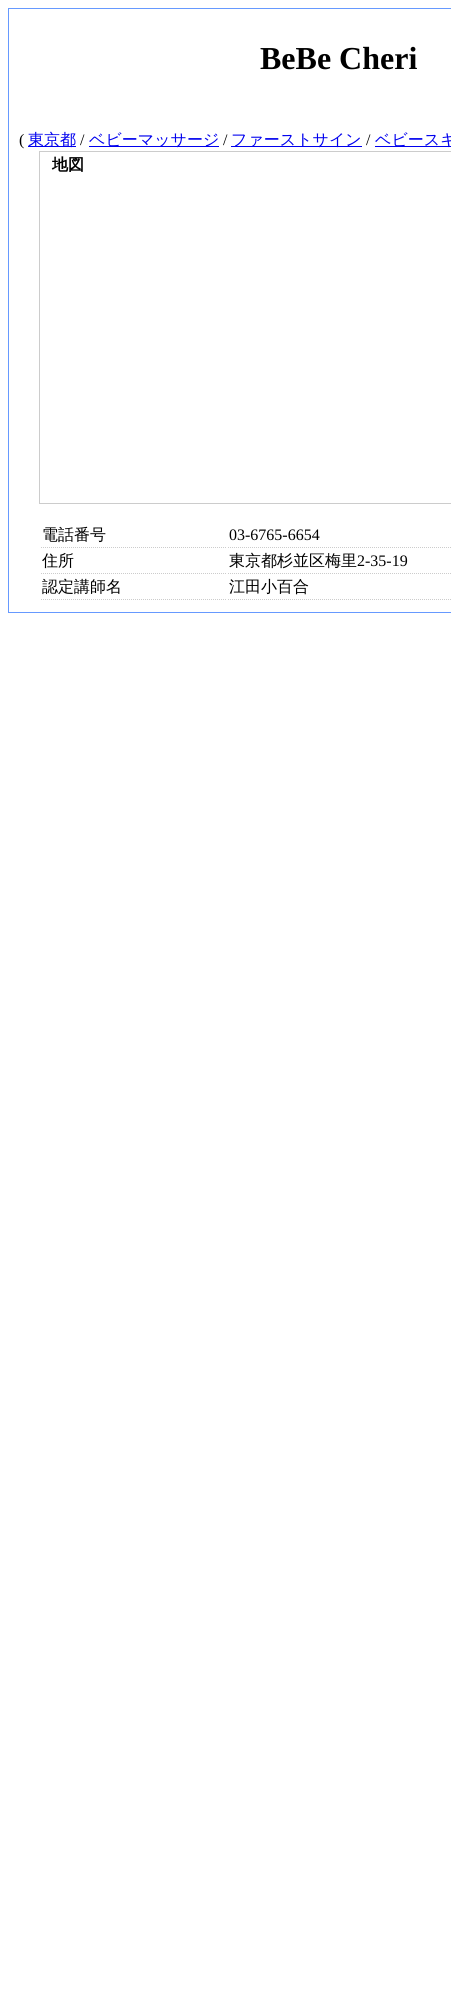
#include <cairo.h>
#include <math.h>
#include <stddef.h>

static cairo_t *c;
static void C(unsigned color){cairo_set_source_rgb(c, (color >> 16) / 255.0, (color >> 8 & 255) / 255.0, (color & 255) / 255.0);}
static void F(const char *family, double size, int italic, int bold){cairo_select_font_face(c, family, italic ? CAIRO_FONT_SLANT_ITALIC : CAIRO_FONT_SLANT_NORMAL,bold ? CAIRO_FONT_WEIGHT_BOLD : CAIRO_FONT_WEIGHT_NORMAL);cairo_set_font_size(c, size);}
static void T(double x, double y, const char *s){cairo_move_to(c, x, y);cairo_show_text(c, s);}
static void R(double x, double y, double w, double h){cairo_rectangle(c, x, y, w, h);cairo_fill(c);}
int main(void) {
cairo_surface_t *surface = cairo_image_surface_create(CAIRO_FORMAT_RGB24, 451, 2006);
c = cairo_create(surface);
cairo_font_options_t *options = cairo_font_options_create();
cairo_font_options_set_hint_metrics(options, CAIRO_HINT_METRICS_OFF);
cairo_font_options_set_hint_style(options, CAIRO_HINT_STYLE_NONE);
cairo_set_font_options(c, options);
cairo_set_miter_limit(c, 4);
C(0xffffff);
cairo_paint(c);
cairo_rectangle(c,8.5,8.5,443,604);
C(0x6699ff);
cairo_set_line_width(c,1);
cairo_stroke(c);
F("Liberation Serif",32,0,1);
C(0x000000);
T(260,69,"BeBe Cheri");
F("Liberation Serif",16,0,0);
T(19,145,"(");
C(0x0000ee);
R(28,146,48,1);
F("WenQuanYi Zen Hei Medium",16,0,0);
T(28,145,"東京都");
F("Liberation Serif",16,0,0);
C(0x000000);
T(80,145,"/");
C(0x0000ee);
R(89,146,130,1);
F("WenQuanYi Zen Hei Medium",16,0,0);
T(89,145,"ベビーマッサージ");
F("Liberation Serif",16,0,0);
C(0x000000);
T(223,145,"/");
C(0x0000ee);
R(231,146,131,1);
F("WenQuanYi Zen Hei Medium",16,0,0);
T(231,145,"ファーストサイン");
F("Liberation Serif",16,0,0);
C(0x000000);
T(366,145,"/");
C(0x0000ee);
R(375,146,76,1);
F("WenQuanYi Zen Hei Medium",16,0,0);
T(375,145,"ベビースキ");
cairo_rectangle(c,39.5,151.5,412,352);
C(0xcccccc);
cairo_stroke(c);
F("WenQuanYi Zen Hei",16,0,1);
C(0x000000);
T(52,170,"地図");
cairo_new_path(c);
cairo_move_to(c,41,547.5);
cairo_line_to(c,226,547.5);
C(0xcccccc);
cairo_set_dash(c,(double[]){1,1},2,0);
cairo_stroke(c);
F("WenQuanYi Zen Hei Medium",16,0,0);
C(0x000000);
T(42,540,"電話番号");
cairo_new_path(c);
cairo_move_to(c,228,547.5);
cairo_line_to(c,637,547.5);
C(0xcccccc);
cairo_stroke(c);
F("Liberation Serif",16,0,0);
C(0x000000);
T(229,540,"03-6765-6654");
cairo_new_path(c);
cairo_move_to(c,41,573.5);
cairo_line_to(c,226,573.5);
C(0xcccccc);
cairo_stroke(c);
F("WenQuanYi Zen Hei Medium",16,0,0);
C(0x000000);
T(42,566,"住所");
cairo_new_path(c);
cairo_move_to(c,228,573.5);
cairo_line_to(c,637,573.5);
C(0xcccccc);
cairo_stroke(c);
C(0x000000);
T(229,566,"東京都杉並区梅里");
F("Liberation Serif",16,0,0);
T(357,566,"2-35-19");
cairo_new_path(c);
cairo_move_to(c,41,599.5);
cairo_line_to(c,226,599.5);
C(0xcccccc);
cairo_stroke(c);
F("WenQuanYi Zen Hei Medium",16,0,0);
C(0x000000);
T(42,592,"認定講師名");
cairo_new_path(c);
cairo_move_to(c,228,599.5);
cairo_line_to(c,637,599.5);
C(0xcccccc);
cairo_stroke(c);
C(0x000000);
T(229,592,"江田小百合");
cairo_surface_write_to_png(surface, "o.png");
cairo_font_options_destroy(options);
cairo_destroy(c);
cairo_surface_destroy(surface);
return 0;
}
